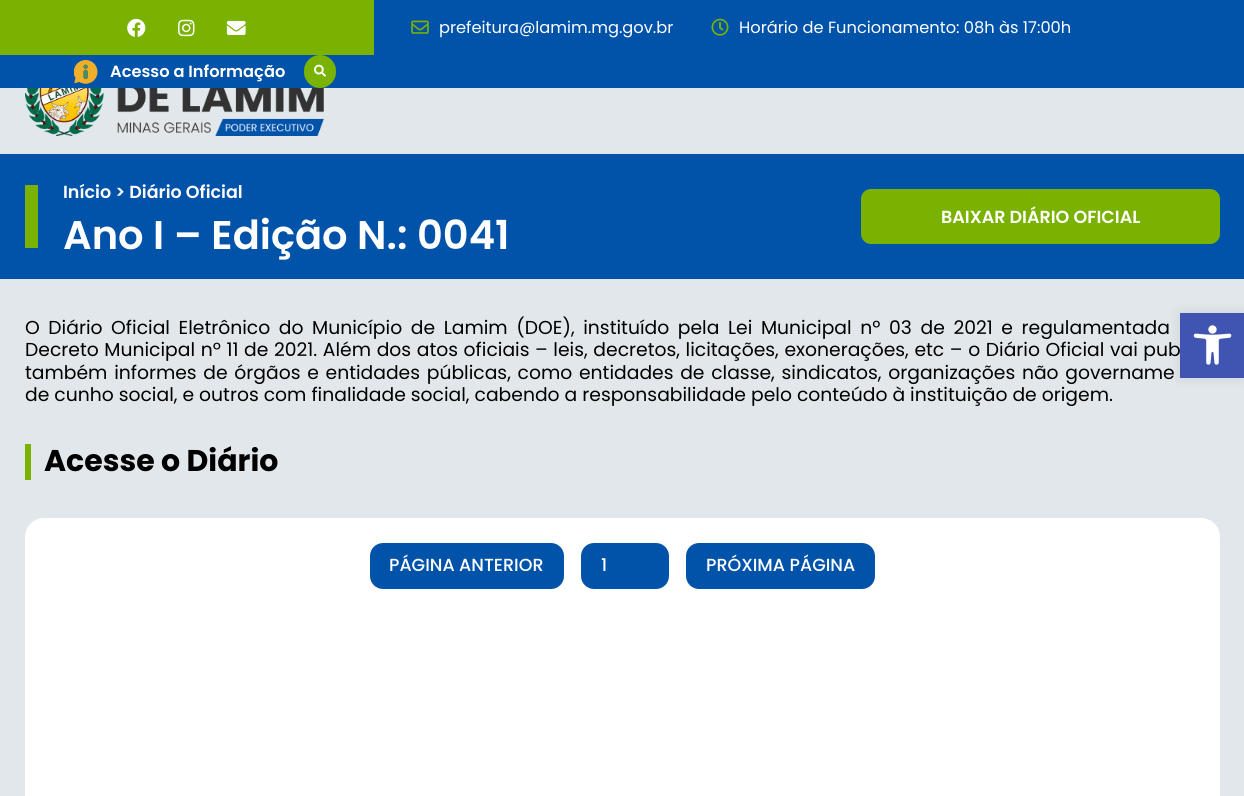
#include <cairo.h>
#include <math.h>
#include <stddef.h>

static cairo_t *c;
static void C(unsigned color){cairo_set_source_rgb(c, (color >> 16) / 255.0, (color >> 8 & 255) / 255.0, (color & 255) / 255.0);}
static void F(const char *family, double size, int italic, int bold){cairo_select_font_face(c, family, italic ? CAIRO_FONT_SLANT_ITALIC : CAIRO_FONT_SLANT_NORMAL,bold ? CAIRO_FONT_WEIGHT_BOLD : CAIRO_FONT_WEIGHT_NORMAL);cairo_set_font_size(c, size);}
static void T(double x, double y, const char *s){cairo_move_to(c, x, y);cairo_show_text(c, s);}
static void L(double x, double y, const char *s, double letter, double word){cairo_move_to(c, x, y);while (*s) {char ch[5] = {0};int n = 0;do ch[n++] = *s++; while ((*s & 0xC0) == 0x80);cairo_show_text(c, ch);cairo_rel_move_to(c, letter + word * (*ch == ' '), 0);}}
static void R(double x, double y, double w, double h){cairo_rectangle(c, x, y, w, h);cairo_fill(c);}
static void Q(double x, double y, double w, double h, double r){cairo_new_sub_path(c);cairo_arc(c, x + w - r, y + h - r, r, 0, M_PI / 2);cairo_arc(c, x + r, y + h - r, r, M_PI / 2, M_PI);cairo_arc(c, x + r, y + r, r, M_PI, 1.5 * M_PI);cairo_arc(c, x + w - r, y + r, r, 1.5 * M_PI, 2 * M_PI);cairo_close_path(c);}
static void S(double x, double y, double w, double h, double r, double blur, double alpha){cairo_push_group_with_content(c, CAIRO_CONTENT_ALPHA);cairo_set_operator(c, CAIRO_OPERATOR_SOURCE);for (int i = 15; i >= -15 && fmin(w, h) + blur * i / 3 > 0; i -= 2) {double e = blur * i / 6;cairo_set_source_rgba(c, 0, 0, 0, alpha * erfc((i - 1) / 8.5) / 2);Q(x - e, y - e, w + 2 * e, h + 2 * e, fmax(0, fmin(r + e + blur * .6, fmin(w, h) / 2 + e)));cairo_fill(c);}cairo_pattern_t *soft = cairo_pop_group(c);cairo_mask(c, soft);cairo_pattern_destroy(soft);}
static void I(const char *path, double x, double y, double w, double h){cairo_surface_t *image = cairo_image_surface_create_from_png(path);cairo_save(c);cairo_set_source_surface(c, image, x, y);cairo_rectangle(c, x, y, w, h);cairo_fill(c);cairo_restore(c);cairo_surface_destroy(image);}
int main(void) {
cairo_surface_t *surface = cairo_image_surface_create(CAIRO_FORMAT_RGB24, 1244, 796);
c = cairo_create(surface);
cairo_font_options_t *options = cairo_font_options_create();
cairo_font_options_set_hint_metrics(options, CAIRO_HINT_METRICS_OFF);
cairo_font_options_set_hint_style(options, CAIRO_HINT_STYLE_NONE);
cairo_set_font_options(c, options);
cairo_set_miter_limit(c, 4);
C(0xe1e7ea);
cairo_paint(c);
C(0x0153aa);
R(0,0,1244,88);
C(0x7ab201);
R(0,0,374,55);
I("1.png",127,18,19,19);
I("2.png",178,19,17,18);
I("3.png",226,20,20,15);
I("4.png",411,20,18,14);
F("Poppins",16.25,0,0);
C(0xffffff);
T(439,33,"prefeitura@lamim.mg.gov.br");
I("5.png",711,18,18,18);
T(739,33,"Horário de Funcionamento: 08h às 17:00h");
I("6.png",74,60,24,24);
F("Poppins SemiBold",16.25,0,0);
T(110,77,"Acesso a Informação");
C(0x7ab201);
Q(304,55,32,33,16);
cairo_fill(c);
I("7.png",314,64,12,13);
I("8.png",25,88,299,48);
C(0x0153aa);
R(0,154,1244,125);
C(0x7ab201);
R(25,185,13,63);
F("Poppins SemiBold",17.5,0,0);
C(0xffffff);
T(63,198,"Início > Diário Oficial");
F("Poppins SemiBold",40,0,0);
T(63,249,"Ano I – Edição N.: 0041");
C(0x7ab201);
Q(861,189,359,55,10);
cairo_fill(c);
F("Poppins SemiBold",17.5,0,0);
C(0xffffff);
T(941,223,"BAIXAR DIÁRIO OFICIAL");
F("Poppins",18.75,0,0);
C(0x000000);
L(25,334,"O Diário Oficial Eletrônico do Município de Lamim (DOE), instituído pela Lei Municipal nº 03 de 2021 e regulamentada",0,3.6);
L(25,356,"Decreto Municipal nº 11 de 2021. Além dos atos oficiais – leis, decretos, licitações, exonerações, etc – o Diário Oficial vai pub",0,.6);
L(25,379,"também informes de órgãos e entidades públicas, como entidades de classe, sindicatos, organizações não govername",0,1.7);
T(25,401,"de cunho social, e outros com finalidade social, cabendo a responsabilidade pelo conteúdo à instituição de origem.");
C(0x7ab201);
R(25,444,6,36);
F("Poppins",30,0,1);
C(0x000000);
T(44,471,"Acesse o Diário");
C(0xffffff);
Q(25,518,1195,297,19);
cairo_fill(c);
C(0x0153aa);
Q(370,543,194,46,13);
cairo_fill(c);
F("Poppins Medium",17.5,0,0);
C(0xffffff);
T(389,571,"PÁGINA ANTERIOR");
C(0x0153aa);
Q(581,543,88,46,13);
cairo_fill(c);
C(0xffffff);
T(601,571,"1");
C(0x0153aa);
Q(686,543,189,46,13);
cairo_fill(c);
C(0xffffff);
T(706,571,"PRÓXIMA PÁGINA");
C(0x000000);
S(1180,313,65,65,0,6,.1);
C(0x4054b2);
R(1180,313,64,65);
I("9.png",1193,325,39,40);
cairo_surface_write_to_png(surface, "o.png");
cairo_font_options_destroy(options);
cairo_destroy(c);
cairo_surface_destroy(surface);
return 0;
}
